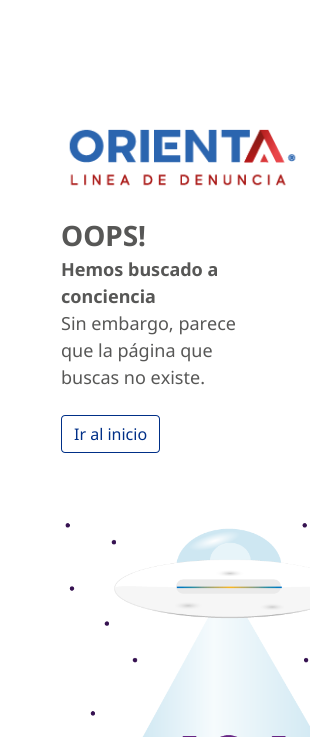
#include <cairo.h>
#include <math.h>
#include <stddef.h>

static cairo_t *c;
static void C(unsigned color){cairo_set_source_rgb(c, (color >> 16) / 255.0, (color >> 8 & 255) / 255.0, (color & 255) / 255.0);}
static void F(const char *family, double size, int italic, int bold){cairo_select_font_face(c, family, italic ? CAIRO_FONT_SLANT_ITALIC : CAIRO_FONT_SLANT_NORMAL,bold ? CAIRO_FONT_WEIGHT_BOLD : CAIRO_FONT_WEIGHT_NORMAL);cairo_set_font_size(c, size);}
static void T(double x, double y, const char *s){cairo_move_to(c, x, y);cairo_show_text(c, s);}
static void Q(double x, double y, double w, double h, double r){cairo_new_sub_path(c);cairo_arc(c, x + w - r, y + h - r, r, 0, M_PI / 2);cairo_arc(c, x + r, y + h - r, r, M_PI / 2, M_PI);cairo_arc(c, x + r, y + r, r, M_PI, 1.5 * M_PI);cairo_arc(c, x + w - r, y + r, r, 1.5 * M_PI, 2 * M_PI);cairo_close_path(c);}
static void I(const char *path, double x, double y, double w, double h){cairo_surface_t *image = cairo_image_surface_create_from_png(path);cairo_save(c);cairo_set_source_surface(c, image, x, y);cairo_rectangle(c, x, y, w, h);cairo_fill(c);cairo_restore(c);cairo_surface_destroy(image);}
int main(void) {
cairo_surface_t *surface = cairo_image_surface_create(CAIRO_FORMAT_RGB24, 310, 737);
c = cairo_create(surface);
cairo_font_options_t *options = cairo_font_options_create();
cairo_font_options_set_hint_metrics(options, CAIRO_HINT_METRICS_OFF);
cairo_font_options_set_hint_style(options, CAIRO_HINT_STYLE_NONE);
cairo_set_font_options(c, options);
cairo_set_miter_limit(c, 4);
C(0xffffff);
cairo_paint(c);
I("1.png",69,129,227,57);
F("Noto Sans",28,0,1);
C(0x575756);
T(61,246,"OOPS!");
F("Noto Sans",18,0,1);
T(61,276,"Hemos buscado a");
T(61,303,"conciencia");
F("Noto Sans",18,0,0);
T(61,330,"Sin embargo, parece");
T(61,357,"que la página que");
T(61,384,"buscas no existe.");
Q(61.5,415.5,98,37,3.5);
C(0x002f87);
cairo_set_line_width(c,1);
cairo_stroke(c);
F("Noto Sans",16,0,0);
T(74,440,"Ir al inicio");
I("2.png",65,523,245,214);
cairo_surface_write_to_png(surface, "o.png");
cairo_font_options_destroy(options);
cairo_destroy(c);
cairo_surface_destroy(surface);
return 0;
}
